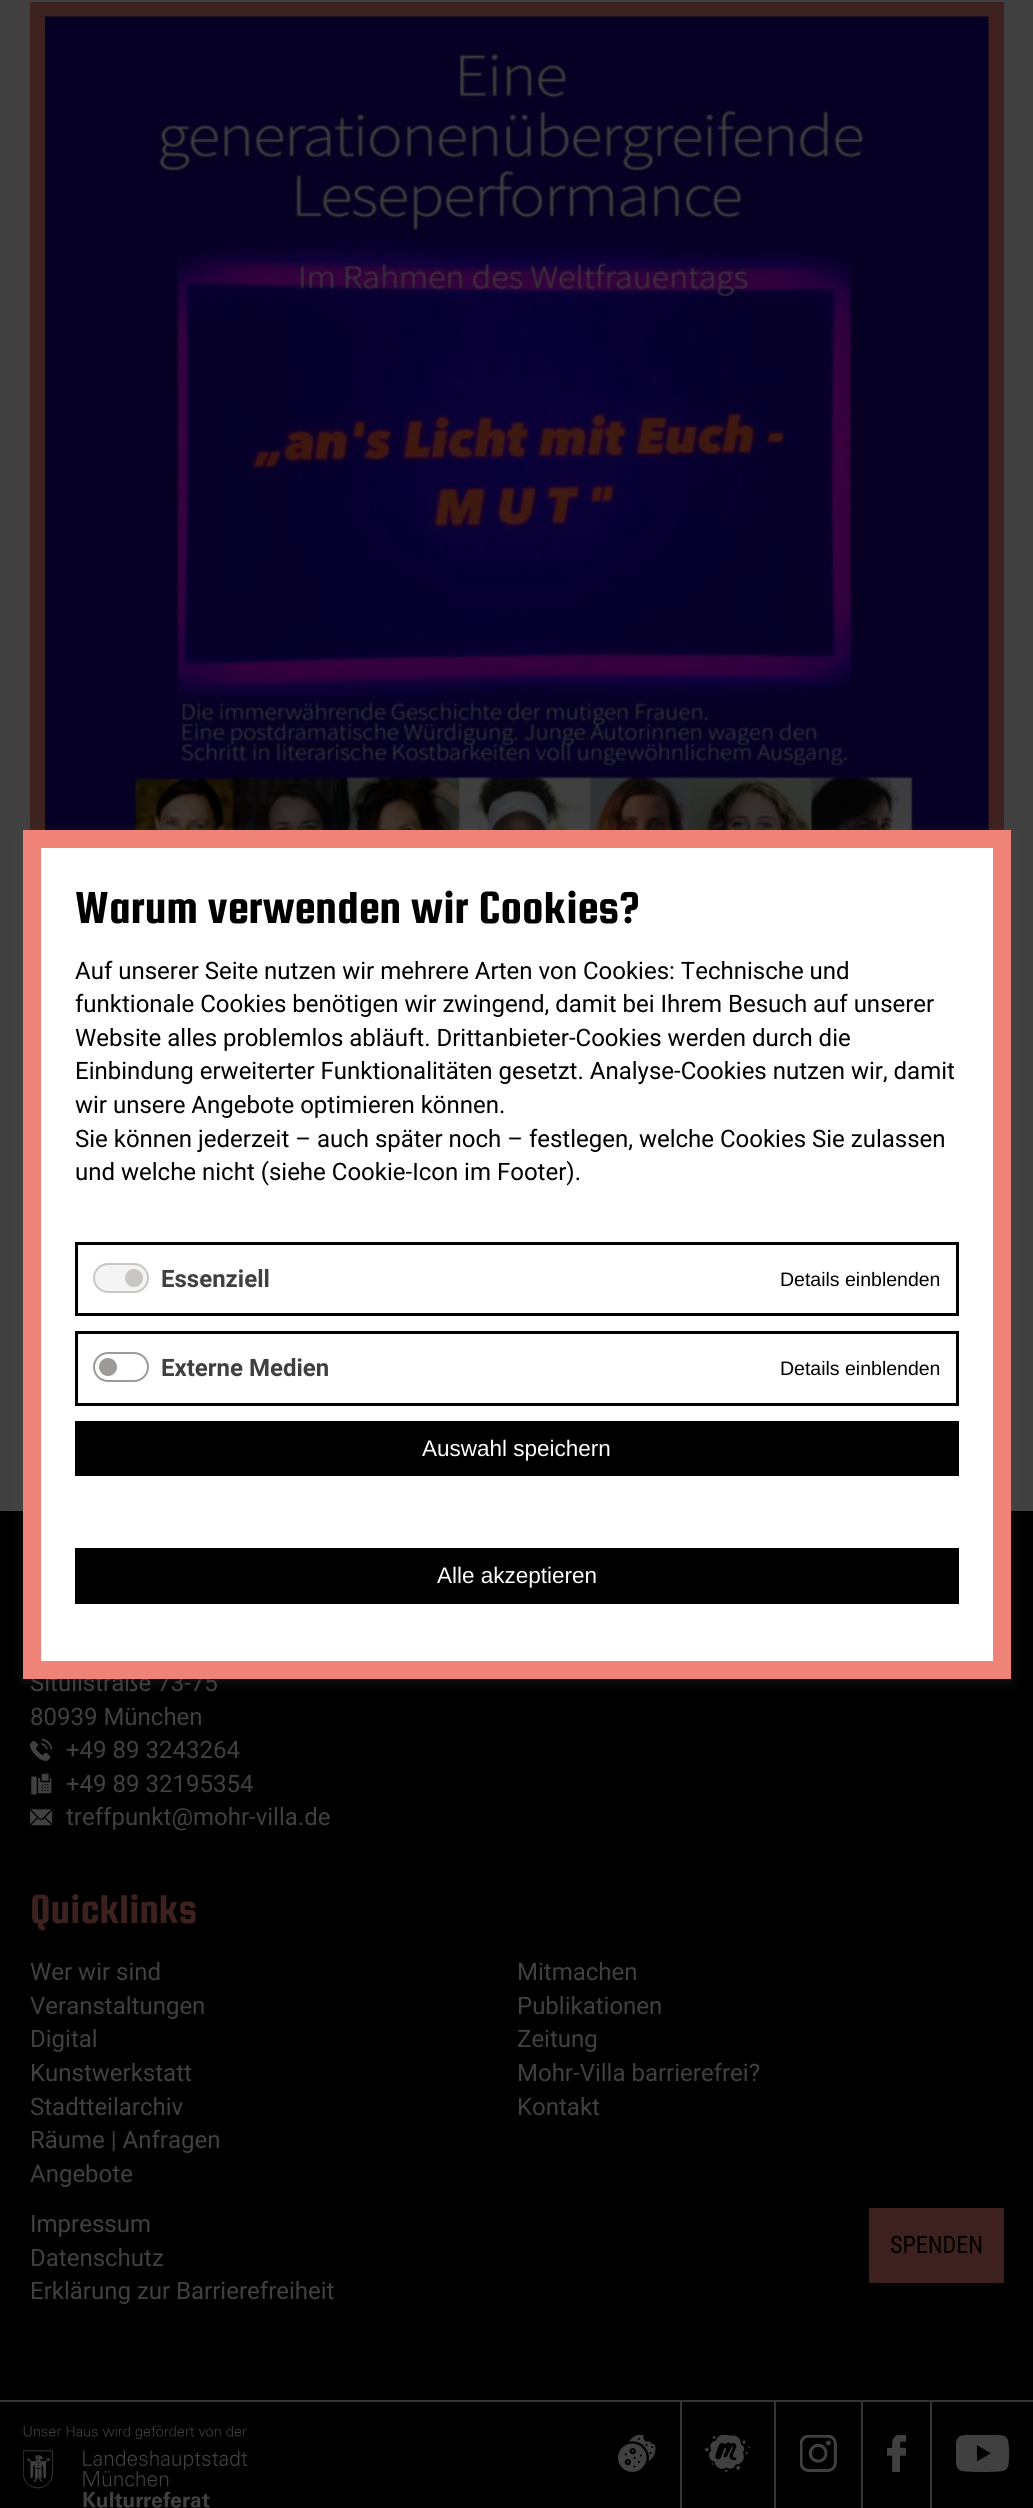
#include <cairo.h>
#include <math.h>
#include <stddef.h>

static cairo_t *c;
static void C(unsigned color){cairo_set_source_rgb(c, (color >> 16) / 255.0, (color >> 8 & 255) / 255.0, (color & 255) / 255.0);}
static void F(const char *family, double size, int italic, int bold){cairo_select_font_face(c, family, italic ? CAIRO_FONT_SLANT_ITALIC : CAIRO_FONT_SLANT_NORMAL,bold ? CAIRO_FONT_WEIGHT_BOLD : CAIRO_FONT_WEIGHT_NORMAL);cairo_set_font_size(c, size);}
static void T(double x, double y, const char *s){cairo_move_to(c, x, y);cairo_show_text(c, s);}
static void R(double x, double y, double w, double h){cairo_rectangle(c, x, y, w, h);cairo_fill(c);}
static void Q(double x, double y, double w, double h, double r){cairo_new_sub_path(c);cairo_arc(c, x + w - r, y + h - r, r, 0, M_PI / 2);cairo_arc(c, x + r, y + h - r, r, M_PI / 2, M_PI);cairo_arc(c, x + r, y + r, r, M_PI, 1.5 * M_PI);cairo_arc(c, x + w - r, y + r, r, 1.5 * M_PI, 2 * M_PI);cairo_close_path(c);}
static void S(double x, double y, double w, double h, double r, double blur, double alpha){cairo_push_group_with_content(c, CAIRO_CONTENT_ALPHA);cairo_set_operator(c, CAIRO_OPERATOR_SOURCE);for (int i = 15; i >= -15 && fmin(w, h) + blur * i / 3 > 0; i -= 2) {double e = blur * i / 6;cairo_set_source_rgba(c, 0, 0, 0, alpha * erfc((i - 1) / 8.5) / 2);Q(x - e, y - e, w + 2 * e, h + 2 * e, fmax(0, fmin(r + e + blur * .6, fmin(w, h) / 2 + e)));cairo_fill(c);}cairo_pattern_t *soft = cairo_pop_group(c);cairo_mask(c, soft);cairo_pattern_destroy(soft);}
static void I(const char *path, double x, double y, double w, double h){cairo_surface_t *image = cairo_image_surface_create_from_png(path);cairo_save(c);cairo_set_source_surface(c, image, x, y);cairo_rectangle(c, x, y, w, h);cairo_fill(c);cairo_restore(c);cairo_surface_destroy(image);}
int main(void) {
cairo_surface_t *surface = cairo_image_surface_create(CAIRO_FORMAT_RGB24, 1033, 2508);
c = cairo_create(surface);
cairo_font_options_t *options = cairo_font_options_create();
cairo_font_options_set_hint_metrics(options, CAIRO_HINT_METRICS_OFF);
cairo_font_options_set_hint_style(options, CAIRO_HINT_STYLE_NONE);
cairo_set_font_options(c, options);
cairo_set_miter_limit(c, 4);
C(0x404040);
cairo_paint(c);
C(0x3c211e);
R(30,2,974,828);
I("1.png",45,16,944,814);
C(0x000000);
R(0,1511,1033,997);
C(0x636363);
S(23,833,988,849,0,6,.2);
F("Roboto",24,0,0);
C(0x404040);
T(30,1691,"Situlistraße 73-75");
C(0xffffff);
cairo_rectangle(c,32,839,970,831);
cairo_fill_preserve(c);
C(0xef8377);
cairo_set_line_width(c,18);
cairo_stroke(c);
F("Squada One",48,0,0);
C(0x000000);
T(75,923,"Warum verwenden wir Cookies?");
F("Roboto",24,0,0);
T(75,979,"Auf unserer Seite nutzen wir mehrere Arten von Cookies: Technische und");
T(75,1012,"funktionale Cookies benötigen wir zwingend, damit bei Ihrem Besuch auf unserer");
T(75,1046,"Website alles problemlos abläuft. Drittanbieter-Cookies werden durch die");
T(75,1079,"Einbindung erweiterter Funktionalitäten gesetzt. Analyse-Cookies nutzen wir, damit");
T(75,1113,"wir unsere Angebote optimieren können.");
T(75,1147,"Sie können jederzeit – auch später noch – festlegen, welche Cookies Sie zulassen");
T(75,1180,"und welche nicht (siehe Cookie-Icon im Footer).");
cairo_rectangle(c,76.5,1243.5,881,71);
cairo_set_line_width(c,3);
cairo_stroke(c);
C(0xf4f4f4);
Q(94,1264,54,28,14);
cairo_fill_preserve(c);
C(0xc8c7c5);
cairo_set_line_width(c,2);
cairo_stroke(c);
cairo_arc(c,134,1278,9,0,2 * M_PI);
cairo_fill(c);
F("Roboto",24,0,1);
C(0x404040);
T(161,1287,"Essenziell");
F("Liberation Sans",19.5,0,0);
C(0x000000);
T(780,1286,"Details einblenden");
cairo_rectangle(c,76.5,1332.5,881,72);
cairo_set_line_width(c,3);
cairo_stroke(c);
Q(94,1353,54,28,14);
C(0x9c9b99);
cairo_set_line_width(c,2);
cairo_stroke(c);
cairo_arc(c,108,1367,9,0,2 * M_PI);
cairo_fill(c);
F("Roboto",24,0,1);
C(0x404040);
T(161,1376,"Externe Medien");
F("Liberation Sans",19.5,0,0);
C(0x000000);
T(780,1375,"Details einblenden");
R(75,1421,884,55);
F("Liberation Sans",22.5,0,0);
C(0xffffff);
T(422,1456,"Auswahl speichern");
C(0x000000);
R(75,1548,884,56);
C(0xffffff);
T(437,1583,"Alle akzeptieren");
F("Roboto",24,0,0);
C(0x404040);
T(30,1725,"80939 München");
I("2.png",30,1739,23,22);
T(66,1758,"+49 89 3243264");
I("3.png",31,1773,21,22);
T(66,1792,"+49 89 32195354");
I("4.png",30,1809,23,17);
T(66,1825,"treffpunkt@mohr-villa.de");
F("Squada One",43,0,0);
C(0x3c211e);
T(30,1923,"Quicklinks");
F("Roboto",24,0,0);
C(0x404040);
T(30,1980,"Wer wir sind");
T(30,2014,"Veranstaltungen");
T(30,2047,"Digital");
T(30,2081,"Kunstwerkstatt");
T(30,2115,"Stadtteilarchiv");
T(30,2148,"Räume | Anfragen");
T(30,2182,"Angebote");
T(517,1980,"Mitmachen");
T(517,2014,"Publikationen");
T(517,2047,"Zeitung");
T(517,2081,"Mohr-Villa barrierefrei?");
T(517,2115,"Kontakt");
T(30,2232,"Impressum");
T(30,2266,"Datenschutz");
T(30,2299,"Erklärung zur Barrierefreiheit");
cairo_rectangle(c,870.5,2209.5,132,72);
C(0x3c211e);
cairo_set_line_width(c,3);
cairo_stroke(c);
R(872,2211,129,69);
F("Roboto Condensed",24,0,0);
C(0x000000);
T(890,2253,"SPENDEN");
C(0x373434);
R(0,2400,1033,2);
I("5.png",23,2426,225,82);
I("6.png",618,2435,38,37);
R(680,2402,2,106);
I("7.png",705,2435,45,37);
R(774,2402,2,106);
I("8.png",800,2435,37,37);
R(861,2402,2,106);
I("9.png",887,2435,19,37);
R(930,2402,2,106);
I("10.png",956,2435,54,37);
cairo_surface_write_to_png(surface, "o.png");
cairo_font_options_destroy(options);
cairo_destroy(c);
cairo_surface_destroy(surface);
return 0;
}
